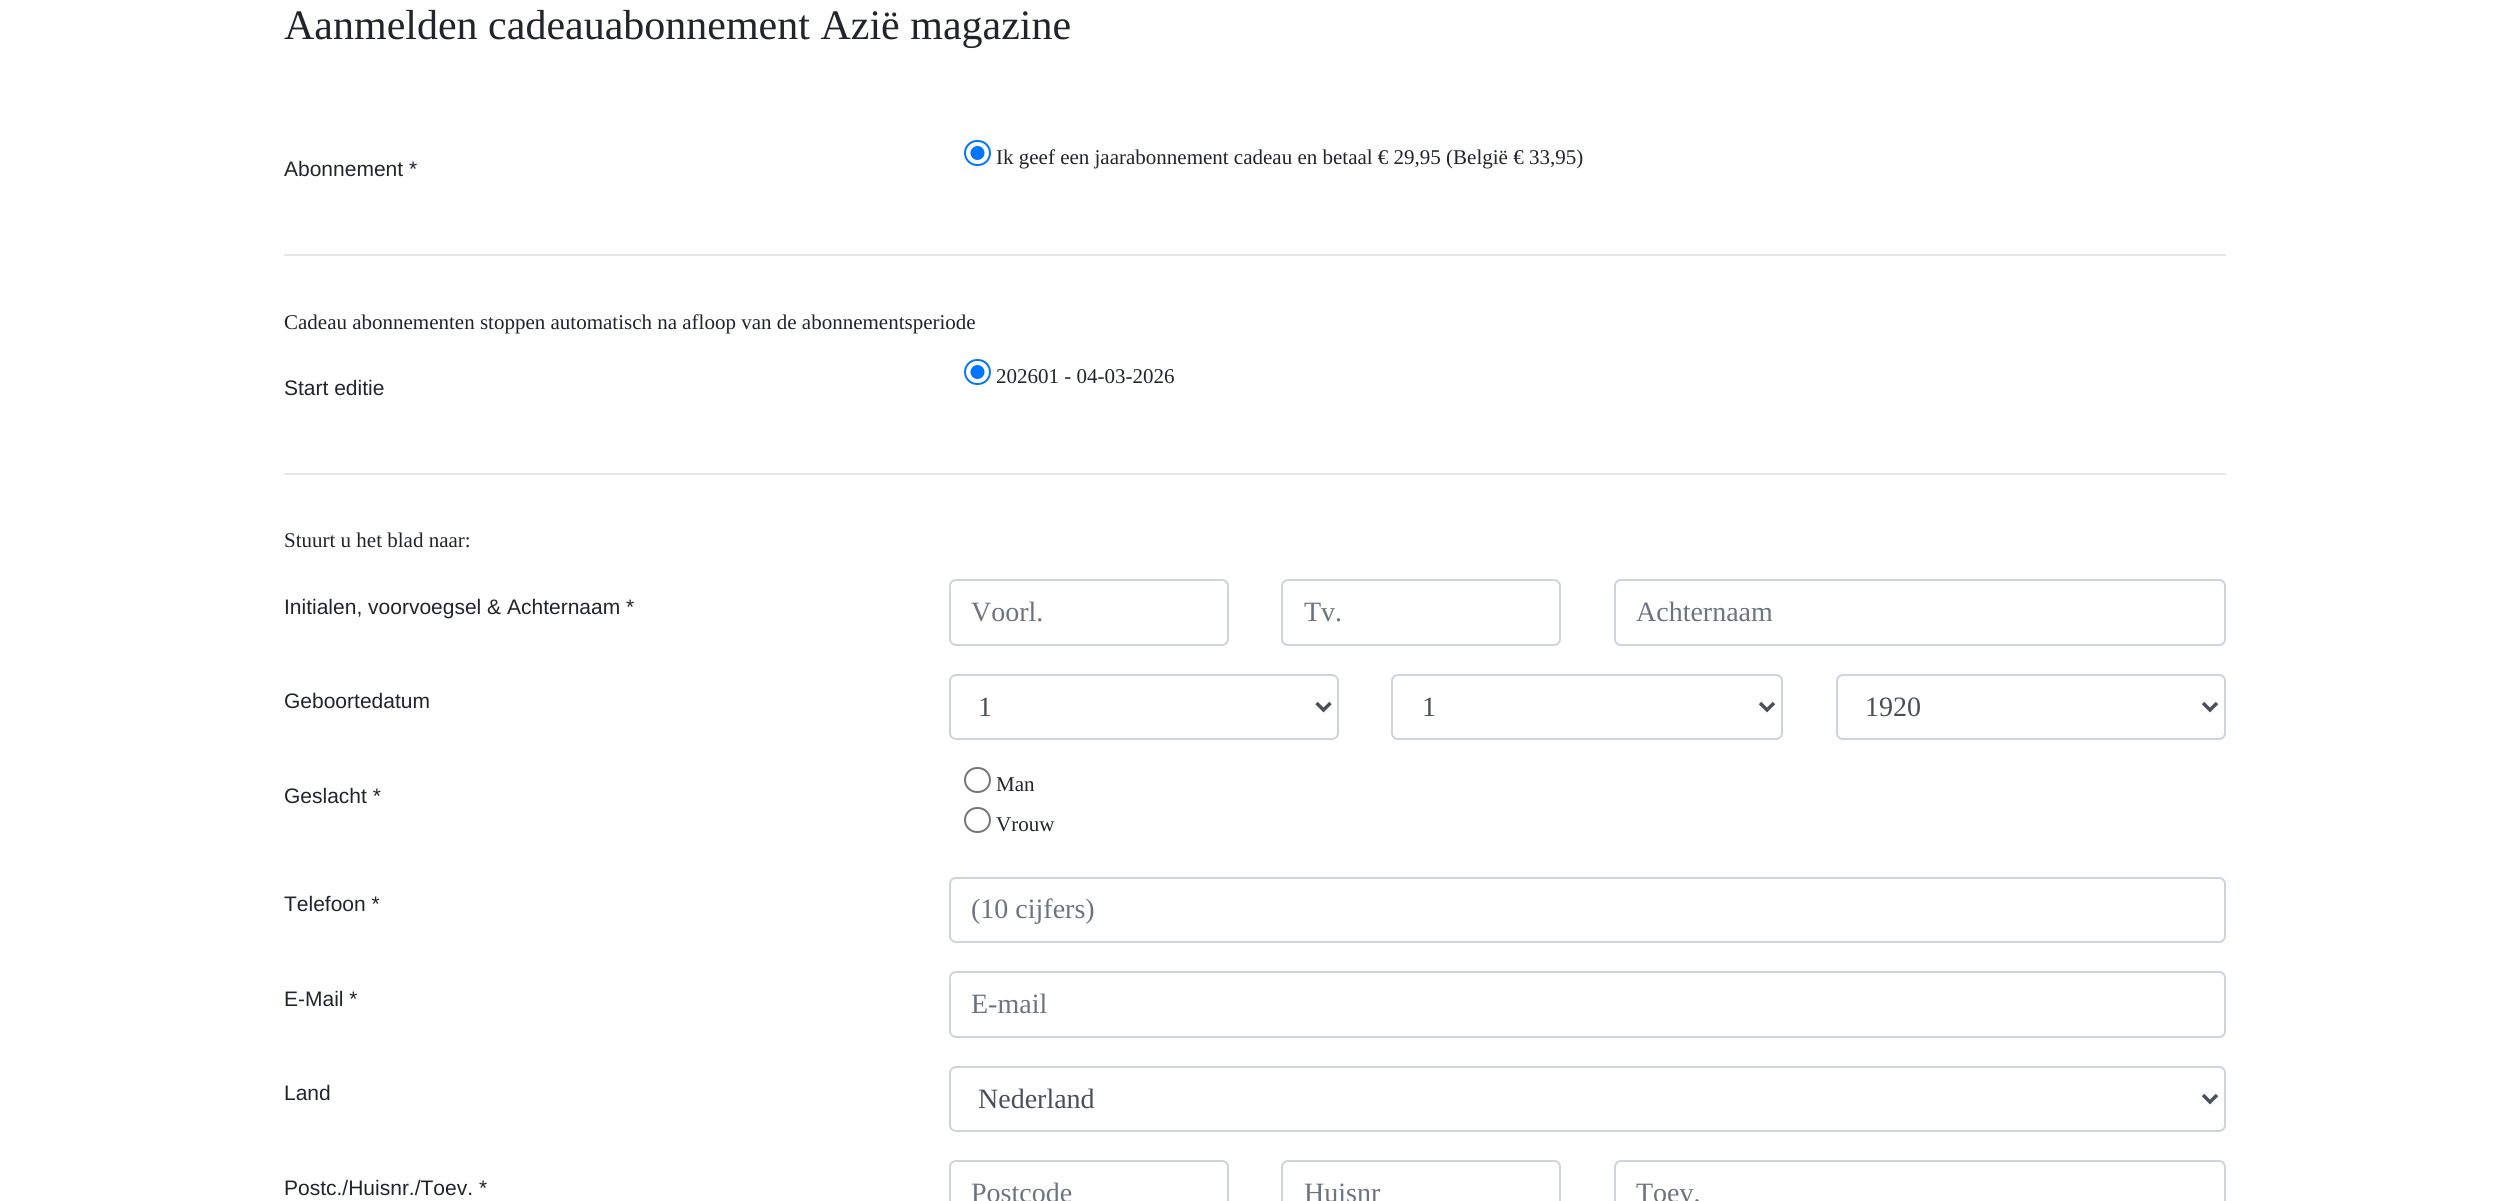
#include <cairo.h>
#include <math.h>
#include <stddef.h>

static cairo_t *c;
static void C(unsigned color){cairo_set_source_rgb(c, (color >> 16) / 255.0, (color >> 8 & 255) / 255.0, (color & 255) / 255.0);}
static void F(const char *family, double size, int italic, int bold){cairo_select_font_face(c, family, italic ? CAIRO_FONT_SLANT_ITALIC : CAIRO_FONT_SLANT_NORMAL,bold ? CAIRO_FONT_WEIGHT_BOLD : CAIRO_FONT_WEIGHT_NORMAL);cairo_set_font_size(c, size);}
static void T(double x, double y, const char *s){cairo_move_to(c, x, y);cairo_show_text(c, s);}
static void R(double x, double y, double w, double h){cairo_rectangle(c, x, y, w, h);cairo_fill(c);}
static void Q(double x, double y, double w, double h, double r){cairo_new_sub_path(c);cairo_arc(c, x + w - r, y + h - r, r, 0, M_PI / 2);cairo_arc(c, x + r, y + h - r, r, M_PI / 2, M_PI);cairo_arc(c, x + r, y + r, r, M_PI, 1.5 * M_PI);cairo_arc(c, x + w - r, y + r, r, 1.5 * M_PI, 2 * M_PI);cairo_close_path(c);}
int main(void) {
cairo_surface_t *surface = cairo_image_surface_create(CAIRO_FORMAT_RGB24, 2509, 1201);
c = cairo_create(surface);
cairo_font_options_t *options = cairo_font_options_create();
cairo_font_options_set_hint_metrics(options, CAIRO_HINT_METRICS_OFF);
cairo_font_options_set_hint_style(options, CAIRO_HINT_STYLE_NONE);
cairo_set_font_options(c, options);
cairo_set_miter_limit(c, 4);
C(0xffffff);
cairo_paint(c);
F("Liberation Serif",42,0,0);
C(0x212529);
T(284,39,"Aanmelden cadeauabonnement Azië magazine");
F("Liberation Sans",21,0,0);
T(284,176,"Abonnement *");
Q(965,141,25,24,12);
C(0x0075ff);
cairo_stroke(c);
cairo_arc(c,977.5,153,7,0,2 * M_PI);
cairo_fill(c);
F("Liberation Serif",21,0,0);
C(0x212529);
T(996,164,"Ik geef een jaarabonnement cadeau en betaal € 29,95 (België € 33,95)");
C(0xe6e6e6);
R(284,254,1942,2);
C(0x212529);
T(284,329,"Cadeau abonnementen stoppen automatisch na afloop van de abonnementsperiode");
Q(965,360,25,24,12);
C(0x0075ff);
cairo_stroke(c);
cairo_arc(c,977.5,372,7,0,2 * M_PI);
cairo_fill(c);
C(0x212529);
T(996,383,"202601 - 04-03-2026");
F("Liberation Sans",21,0,0);
T(284,395,"Start editie");
C(0xe6e6e6);
R(284,473,1942,2);
F("Liberation Serif",21,0,0);
C(0x212529);
T(284,547,"Stuurt u het blad naar:");
F("Liberation Sans",21,0,0);
T(284,614,"Initialen, voorvoegsel & Achternaam *");
Q(950,580,278,65,6);
C(0xced4da);
cairo_stroke(c);
F("Liberation Serif",28,0,0);
C(0x6c757d);
T(971,621,"Voorl.");
Q(1282,580,278,65,6);
C(0xced4da);
cairo_stroke(c);
C(0x6c757d);
T(1304,621,"Tv.");
Q(1615,580,610,65,6);
C(0xced4da);
cairo_stroke(c);
C(0x6c757d);
T(1636,621,"Achternaam");
F("Liberation Sans",21,0,0);
C(0x212529);
T(284,708,"Geboortedatum");
Q(950,675,388,64,6);
C(0xced4da);
cairo_stroke(c);
cairo_new_path(c);
cairo_move_to(c,1316.5,703);
cairo_line_to(c,1323.5,710);
cairo_line_to(c,1330.5,703);
C(0x495057);
cairo_set_line_width(c,3.5);
cairo_stroke(c);
F("Liberation Serif",28,0,0);
T(978,716,"1");
Q(1392,675,390,64,6);
C(0xced4da);
cairo_set_line_width(c,2);
cairo_stroke(c);
cairo_new_path(c);
cairo_move_to(c,1760,703);
cairo_line_to(c,1767,710);
cairo_line_to(c,1774,703);
C(0x495057);
cairo_set_line_width(c,3.5);
cairo_stroke(c);
T(1422,716,"1");
Q(1837,675,388,64,6);
C(0xced4da);
cairo_set_line_width(c,2);
cairo_stroke(c);
cairo_new_path(c);
cairo_move_to(c,2203,703);
cairo_line_to(c,2210,710);
cairo_line_to(c,2217,703);
C(0x495057);
cairo_set_line_width(c,3.5);
cairo_stroke(c);
T(1865,716,"1920");
F("Liberation Sans",21,0,0);
C(0x212529);
T(284,803,"Geslacht *");
Q(965,768,25,24,12);
C(0x767676);
cairo_set_line_width(c,2);
cairo_stroke(c);
F("Liberation Serif",21,0,0);
C(0x212529);
T(996,791,"Man");
Q(965,808,25,24,12);
C(0x767676);
cairo_stroke(c);
C(0x212529);
T(996,831,"Vrouw");
F("Liberation Sans",21,0,0);
T(284,911,"Telefoon *");
Q(950,878,1275,64,6);
C(0xced4da);
cairo_stroke(c);
F("Liberation Serif",28,0,0);
C(0x6c757d);
T(971,918,"(10 cijfers)");
F("Liberation Sans",21,0,0);
C(0x212529);
T(284,1006,"E-Mail *");
Q(950,972,1275,65,6);
C(0xced4da);
cairo_stroke(c);
F("Liberation Serif",28,0,0);
C(0x6c757d);
T(971,1013,"E-mail");
F("Liberation Sans",21,0,0);
C(0x212529);
T(284,1100,"Land");
Q(950,1067,1275,64,6);
C(0xced4da);
cairo_stroke(c);
cairo_new_path(c);
cairo_move_to(c,2203,1095);
cairo_line_to(c,2210,1102);
cairo_line_to(c,2217,1095);
C(0x495057);
cairo_set_line_width(c,3.5);
cairo_stroke(c);
F("Liberation Serif",28,0,0);
T(978,1108,"Nederland");
F("Liberation Sans",21,0,0);
C(0x212529);
T(284,1195,"Postc./Huisnr./Toev. *");
Q(950,1161,278,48,6);
C(0xced4da);
cairo_set_line_width(c,2);
cairo_stroke(c);
F("Liberation Serif",28,0,0);
C(0x6c757d);
T(971,1202,"Postcode");
Q(1282,1161,278,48,6);
C(0xced4da);
cairo_stroke(c);
C(0x6c757d);
T(1304,1202,"Huisnr");
Q(1615,1161,610,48,6);
C(0xced4da);
cairo_stroke(c);
C(0x6c757d);
T(1636,1202,"Toev.");
cairo_surface_write_to_png(surface, "o.png");
cairo_font_options_destroy(options);
cairo_destroy(c);
cairo_surface_destroy(surface);
return 0;
}
